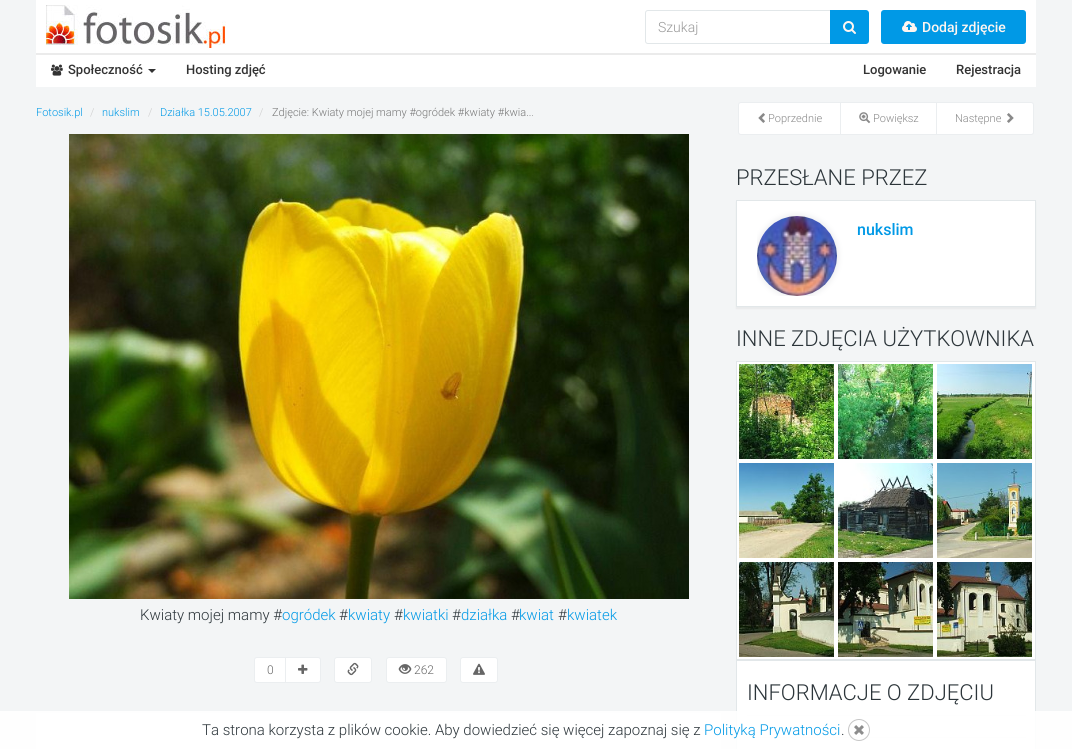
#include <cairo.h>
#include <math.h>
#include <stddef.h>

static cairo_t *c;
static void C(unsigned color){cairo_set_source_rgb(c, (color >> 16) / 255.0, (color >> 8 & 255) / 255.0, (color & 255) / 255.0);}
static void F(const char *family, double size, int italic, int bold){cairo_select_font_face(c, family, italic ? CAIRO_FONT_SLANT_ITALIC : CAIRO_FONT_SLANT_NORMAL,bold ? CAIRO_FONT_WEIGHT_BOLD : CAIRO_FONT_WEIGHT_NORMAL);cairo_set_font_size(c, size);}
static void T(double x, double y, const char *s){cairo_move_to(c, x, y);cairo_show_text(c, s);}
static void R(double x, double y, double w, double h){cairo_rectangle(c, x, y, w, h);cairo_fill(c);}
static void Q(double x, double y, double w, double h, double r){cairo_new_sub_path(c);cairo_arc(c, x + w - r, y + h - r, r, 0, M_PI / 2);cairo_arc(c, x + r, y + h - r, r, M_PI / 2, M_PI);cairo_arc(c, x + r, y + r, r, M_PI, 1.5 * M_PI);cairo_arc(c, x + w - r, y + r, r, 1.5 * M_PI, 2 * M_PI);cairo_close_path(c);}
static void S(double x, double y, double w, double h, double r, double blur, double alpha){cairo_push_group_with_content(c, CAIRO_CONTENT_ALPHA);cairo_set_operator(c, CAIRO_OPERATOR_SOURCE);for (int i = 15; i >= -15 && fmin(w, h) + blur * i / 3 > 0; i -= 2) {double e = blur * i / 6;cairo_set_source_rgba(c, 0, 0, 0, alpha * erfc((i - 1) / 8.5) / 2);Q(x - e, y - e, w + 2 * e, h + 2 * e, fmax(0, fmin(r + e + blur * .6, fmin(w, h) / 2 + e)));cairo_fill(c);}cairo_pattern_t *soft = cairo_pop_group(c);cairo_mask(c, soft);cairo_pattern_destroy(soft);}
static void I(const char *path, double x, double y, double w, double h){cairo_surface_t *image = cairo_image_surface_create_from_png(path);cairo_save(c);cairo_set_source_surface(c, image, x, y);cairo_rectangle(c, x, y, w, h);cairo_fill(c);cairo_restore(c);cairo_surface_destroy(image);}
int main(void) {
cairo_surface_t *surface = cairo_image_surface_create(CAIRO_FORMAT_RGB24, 1072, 749);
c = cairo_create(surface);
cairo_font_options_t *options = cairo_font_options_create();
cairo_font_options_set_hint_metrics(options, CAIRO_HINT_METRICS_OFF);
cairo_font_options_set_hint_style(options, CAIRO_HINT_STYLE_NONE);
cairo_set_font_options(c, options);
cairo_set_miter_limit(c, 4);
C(0xf3f5f6);
cairo_paint(c);
C(0xffffff);
R(36,0,1000,87);
I("1.png",46,5,180,43);
cairo_new_path(c);
cairo_move_to(c,648,10.5);
cairo_line_to(c,830.5,10.5);
cairo_line_to(c,830.5,43.5);
cairo_line_to(c,648,43.5);
cairo_curve_to(c,646.5,43.5,645.5,42.5,645.5,41);
cairo_line_to(c,645.5,13);
cairo_curve_to(c,645.5,11.5,646.5,10.5,648,10.5);
cairo_close_path(c);
C(0xe2e7e9);
cairo_set_line_width(c,1);
cairo_stroke(c);
F("Roboto Light",14,0,0);
C(0x999999);
T(658,32,"Szukaj");
C(0x0099e6);
cairo_new_path(c);
cairo_move_to(c,830,10);
cairo_line_to(c,866,10);
cairo_curve_to(c,867.5,10,869,11.5,869,13);
cairo_line_to(c,869,41);
cairo_curve_to(c,869,42.5,867.5,44,866,44);
cairo_line_to(c,830,44);
cairo_close_path(c);
cairo_fill(c);
I("2.png",843,21,13,13);
Q(881,10,145,34,3);
cairo_fill(c);
I("3.png",902,21,15,11);
F("Roboto Medium",14,0,0);
C(0xfff5f0);
T(922,32,"Dodaj zdjęcie");
C(0xebebeb);
R(36,53,1000,2);
I("4.png",51,64,12,12);
F("Roboto Medium",13,0,0);
C(0x333333);
T(68,74,"Społeczność");
cairo_new_path(c);
cairo_move_to(c,148,69);
cairo_line_to(c,156,69);
cairo_line_to(c,152,73);
cairo_close_path(c);
cairo_fill(c);
T(186,74,"Hosting zdjęć");
T(863,74,"Logowanie");
T(956,74,"Rejestracja");
F("Roboto Light",11,0,0);
C(0x0099e6);
T(36,116,"Fotosik.pl");
C(0xcccccc);
T(90,116,"/");
C(0x0099e6);
T(102,116,"nukslim");
C(0xcccccc);
T(148,116,"/");
C(0x0099e6);
T(160,116,"Działka 15.05.2007");
C(0xcccccc);
T(259,116,"/");
C(0x777777);
T(272,116,"Zdjęcie: Kwiaty mojej mamy #ogródek #kwiaty #kwia...");
I("5.png",69,134,620,465);
F("Roboto Light",15,0,0);
C(0x2c353a);
T(140,620,"Kwiaty mojej mamy #");
C(0x0099e6);
T(282,620,"ogródek");
C(0x2c353a);
T(339,620,"#");
C(0x0099e6);
T(348,620,"kwiaty");
C(0x2c353a);
T(394,620,"#");
C(0x0099e6);
T(403,620,"kwiatki");
C(0x2c353a);
T(452,620,"#");
C(0x0099e6);
T(461,620,"działka");
C(0x2c353a);
T(511,620,"#");
C(0x0099e6);
T(519,620,"kwiat");
C(0x2c353a);
T(558,620,"#");
C(0x0099e6);
T(567,620,"kwiatek");
C(0xffffff);
cairo_new_path(c);
cairo_move_to(c,257,657.5);
cairo_line_to(c,285.5,657.5);
cairo_line_to(c,285.5,682.5);
cairo_line_to(c,257,682.5);
cairo_curve_to(c,255.5,682.5,254.5,681.5,254.5,680);
cairo_line_to(c,254.5,660);
cairo_curve_to(c,254.5,658.5,255.5,657.5,257,657.5);
cairo_close_path(c);
cairo_fill_preserve(c);
C(0xebeef0);
cairo_stroke(c);
F("Roboto Light",12,0,0);
C(0x666666);
T(267,674,"0");
C(0xffffff);
cairo_new_path(c);
cairo_move_to(c,285.5,657.5);
cairo_line_to(c,318,657.5);
cairo_curve_to(c,319.5,657.5,320.5,658.5,320.5,660);
cairo_line_to(c,320.5,680);
cairo_curve_to(c,320.5,681.5,319.5,682.5,318,682.5);
cairo_line_to(c,285.5,682.5);
cairo_close_path(c);
cairo_fill_preserve(c);
C(0xebeef0);
cairo_stroke(c);
I("6.png",298,664,10,10);
C(0xffffff);
Q(334.5,657.5,37,25,2.5);
cairo_fill_preserve(c);
C(0xebeef0);
cairo_stroke(c);
I("7.png",347,662,12,14);
C(0xffffff);
Q(386.5,657.5,60,25,2.5);
cairo_fill_preserve(c);
C(0xebeef0);
cairo_stroke(c);
I("8.png",398,664,14,10);
C(0x666666);
T(414,674,"262");
C(0xffffff);
Q(460.5,657.5,37,25,2.5);
cairo_fill_preserve(c);
C(0xebeef0);
cairo_stroke(c);
I("9.png",473,663,12,12);
C(0xffffff);
R(36,713,685,36);
cairo_new_path(c);
cairo_move_to(c,741,102.5);
cairo_line_to(c,840.5,102.5);
cairo_line_to(c,840.5,134.5);
cairo_line_to(c,741,134.5);
cairo_curve_to(c,739.5,134.5,738.5,133.5,738.5,132);
cairo_line_to(c,738.5,105);
cairo_curve_to(c,738.5,103.5,739.5,102.5,741,102.5);
cairo_close_path(c);
cairo_fill_preserve(c);
C(0xebeef0);
cairo_stroke(c);
I("10.png",758,113,7,10);
F("Roboto Light",11,0,0);
C(0x898989);
T(768,122,"Poprzednie");
C(0xffffff);
cairo_rectangle(c,840.5,102.5,96,32);
cairo_fill_preserve(c);
C(0xebeef0);
cairo_stroke(c);
I("11.png",859,112,12,12);
C(0x898989);
T(873,122,"Powiększ");
C(0xffffff);
cairo_new_path(c);
cairo_move_to(c,936.5,102.5);
cairo_line_to(c,1031,102.5);
cairo_curve_to(c,1032.5,102.5,1033.5,103.5,1033.5,105);
cairo_line_to(c,1033.5,132);
cairo_curve_to(c,1033.5,133.5,1032.5,134.5,1031,134.5);
cairo_line_to(c,936.5,134.5);
cairo_close_path(c);
cairo_fill_preserve(c);
C(0xebeef0);
cairo_stroke(c);
C(0x898989);
T(955,122,"Następne");
I("12.png",1007,113,7,10);
F("Roboto Light",22,0,0);
C(0x2c353a);
T(736,185,"PRZESŁANE PRZEZ");
C(0xe9ebec);
S(736,202,300,107,0,.5,1);
C(0xffffff);
cairo_rectangle(c,736.5,200.5,299,106);
cairo_fill_preserve(c);
C(0xe2e7e9);
cairo_stroke(c);
cairo_save(c);
cairo_rectangle(c,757,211,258,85);
cairo_clip(c);
C(0xeff0f1);
S(755,214,84,84,42,2.5,1);
cairo_restore(c);
I("13.png",757,216,80,80);
F("Roboto Medium",16,0,0);
C(0x0099e6);
T(857,235,"nukslim");
F("Roboto Light",22,0,0);
C(0x2c353a);
T(736,346,"INNE ZDJĘCIA UŻYTKOWNIKA");
C(0xffffff);
cairo_rectangle(c,736.5,361.5,299,298);
cairo_fill_preserve(c);
C(0xe2e7e9);
cairo_stroke(c);
I("14.png",739,364,95,95);
I("15.png",838,364,95,95);
I("16.png",937,364,95,95);
I("17.png",739,463,95,95);
I("18.png",838,463,95,95);
I("19.png",937,463,95,95);
I("20.png",739,562,95,95);
I("21.png",838,562,95,95);
I("22.png",937,562,95,95);
C(0xffffff);
cairo_rectangle(c,736.5,660.5,299,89);
cairo_fill_preserve(c);
C(0xe2e7e9);
cairo_stroke(c);
C(0x2c353a);
T(747,700,"INFORMACJE O ZDJĘCIU");
C(0xf6f8f8);
R(747,715,279,1);
R(747,737,279,1);
cairo_set_source_rgba(c,1,1,1,0.9);
R(0,711,1072,38);
F("Roboto Light",15,0,0);
C(0x2c353a);
T(202,735,"Ta strona korzysta z plików cookie. Aby dowiedzieć się więcej zapoznaj się z");
C(0x0099e6);
T(704,735,"Polityką Prywatności");
C(0x2c353a);
T(841,735,".");
cairo_new_path(c);
cairo_arc(c,859,730,10.5,0,2 * M_PI);
C(0xc6c6c6);
cairo_stroke(c);
I("23.png",854,725,10,10);
cairo_surface_write_to_png(surface, "o.png");
cairo_font_options_destroy(options);
cairo_destroy(c);
cairo_surface_destroy(surface);
return 0;
}
